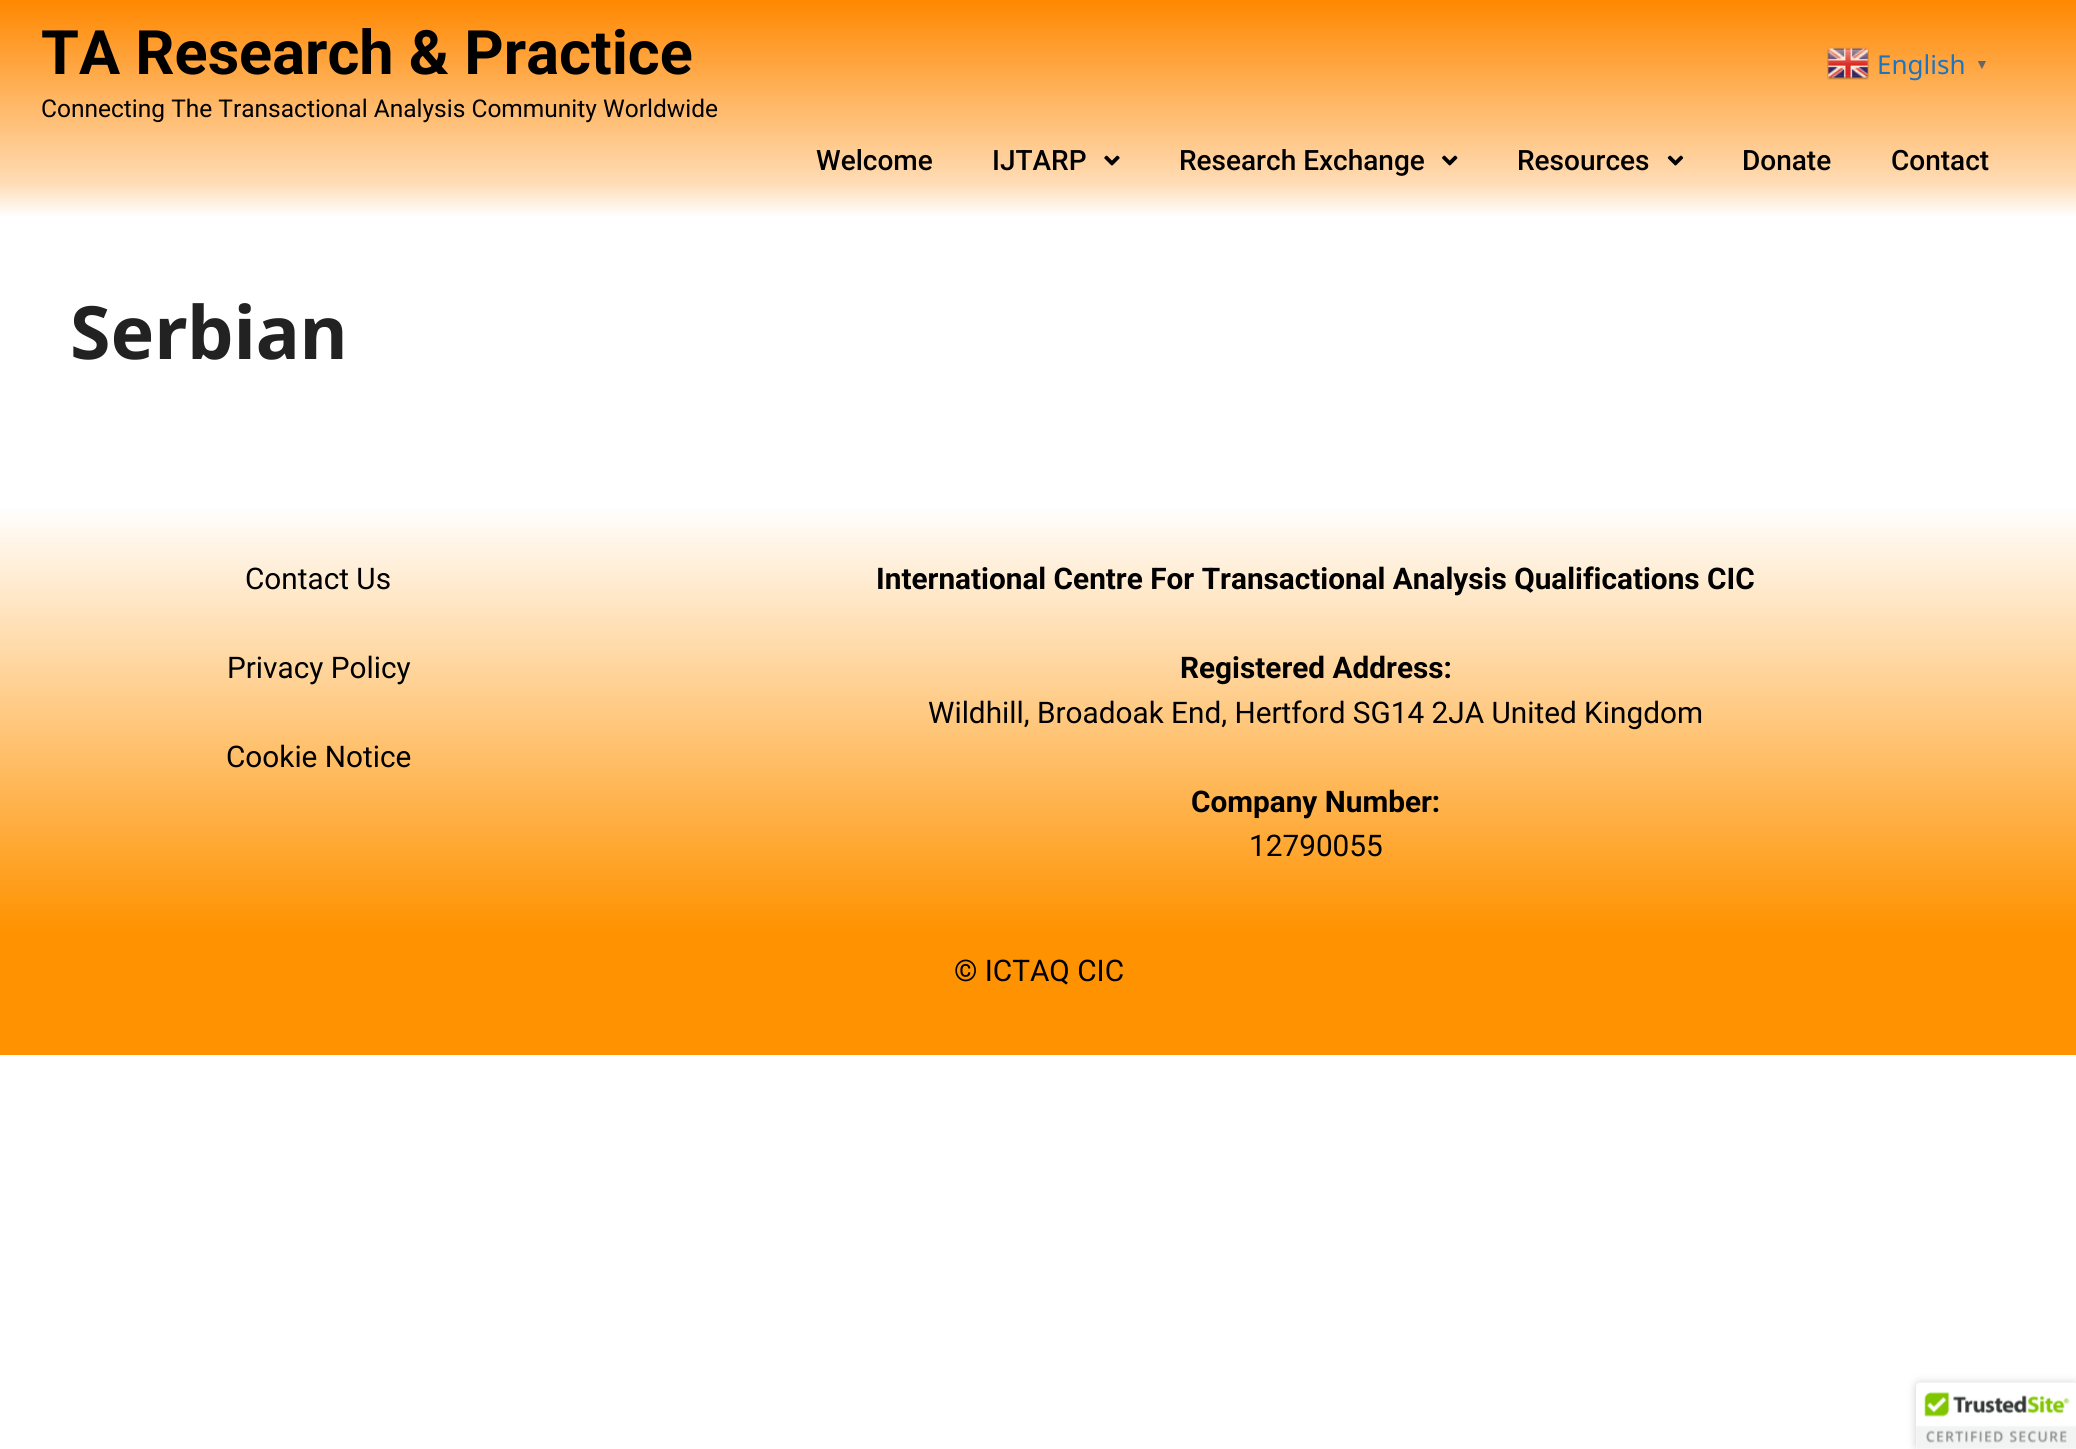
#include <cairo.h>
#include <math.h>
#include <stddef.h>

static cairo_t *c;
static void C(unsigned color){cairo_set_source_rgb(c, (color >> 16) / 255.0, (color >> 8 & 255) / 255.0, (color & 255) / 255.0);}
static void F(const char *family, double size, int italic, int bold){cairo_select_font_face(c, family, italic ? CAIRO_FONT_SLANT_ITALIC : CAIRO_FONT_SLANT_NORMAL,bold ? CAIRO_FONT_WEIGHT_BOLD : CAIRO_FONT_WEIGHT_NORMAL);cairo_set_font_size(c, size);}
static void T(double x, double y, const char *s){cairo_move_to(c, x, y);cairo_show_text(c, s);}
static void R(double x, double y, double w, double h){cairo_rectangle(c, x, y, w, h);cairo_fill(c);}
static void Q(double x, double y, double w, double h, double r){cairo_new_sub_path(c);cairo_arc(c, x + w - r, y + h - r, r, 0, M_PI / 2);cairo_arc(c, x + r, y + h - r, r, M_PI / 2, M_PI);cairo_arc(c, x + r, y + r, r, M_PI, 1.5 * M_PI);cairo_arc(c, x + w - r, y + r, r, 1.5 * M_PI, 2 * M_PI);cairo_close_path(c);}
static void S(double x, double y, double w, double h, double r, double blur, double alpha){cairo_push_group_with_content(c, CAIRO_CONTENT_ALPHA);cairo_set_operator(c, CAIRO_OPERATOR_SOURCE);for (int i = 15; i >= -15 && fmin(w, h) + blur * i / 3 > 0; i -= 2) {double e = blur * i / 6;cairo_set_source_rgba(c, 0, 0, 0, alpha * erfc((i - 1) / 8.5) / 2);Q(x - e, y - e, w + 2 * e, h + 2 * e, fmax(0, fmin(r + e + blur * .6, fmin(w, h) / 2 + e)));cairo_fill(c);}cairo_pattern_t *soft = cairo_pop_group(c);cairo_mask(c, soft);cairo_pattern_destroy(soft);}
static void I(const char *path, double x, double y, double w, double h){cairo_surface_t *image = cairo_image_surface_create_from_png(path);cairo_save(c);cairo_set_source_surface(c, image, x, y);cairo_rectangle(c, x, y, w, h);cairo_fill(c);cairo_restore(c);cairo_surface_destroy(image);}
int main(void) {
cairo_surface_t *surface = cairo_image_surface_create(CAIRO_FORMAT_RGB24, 2076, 1449);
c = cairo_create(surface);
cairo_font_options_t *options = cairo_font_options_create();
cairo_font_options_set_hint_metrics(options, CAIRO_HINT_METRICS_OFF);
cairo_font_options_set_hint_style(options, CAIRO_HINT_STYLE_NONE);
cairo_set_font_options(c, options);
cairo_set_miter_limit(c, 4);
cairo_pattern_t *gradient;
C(0xffffff);
cairo_paint(c);
gradient = cairo_pattern_create_linear(1039,0,1039,182);
cairo_pattern_add_color_stop_rgba(gradient,0,1,0.533,0,1);
cairo_pattern_add_color_stop_rgba(gradient,1,1,0.859,0.702,1);
cairo_set_source(c,gradient);
cairo_pattern_destroy(gradient);
R(0,0,2076,182);
F("Roboto",61.25,0,1);
C(0x000000);
T(41,74,"TA Research & Practice");
F("Roboto",24.5,0,0);
T(41,117,"Connecting The Transactional Analysis Community Worldwide");
I("1.png",1827,47,42,33);
F("Noto Sans",26,0,0);
C(0x1e73be);
T(1877,74,"English");
F("Liberation Sans",14,0,1);
C(0x666666);
T(1975,69,"▼");
gradient = cairo_pattern_create_linear(1039,182,1039,217);
cairo_pattern_add_color_stop_rgba(gradient,0,1,0.859,0.702,1);
cairo_pattern_add_color_stop_rgba(gradient,1,1,1,1,1);
cairo_set_source(c,gradient);
cairo_pattern_destroy(gradient);
R(0,182,2076,34);
F("Roboto Medium",28,0,0);
C(0x000000);
T(816,170,"Welcome");
T(992,170,"IJTARP");
I("2.png",1104,155,16,11);
T(1179,170,"Research Exchange");
I("3.png",1442,155,16,11);
T(1517,170,"Resources");
I("4.png",1667,155,17,11);
T(1742,170,"Donate");
T(1891,170,"Contact");
F("Noto Sans",73.5,0,1);
C(0x222222);
T(70,359,"Serbian");
gradient = cairo_pattern_create_linear(1039,504,1039,931);
cairo_pattern_add_color_stop_rgba(gradient,0,1,1,1,1);
cairo_pattern_add_color_stop_rgba(gradient,1,1,0.573,0,1);
cairo_set_source(c,gradient);
cairo_pattern_destroy(gradient);
R(0,508,2076,423);
F("Roboto",29.75,0,0);
C(0x000000);
T(245,589,"Contact Us");
T(227,678,"Privacy Policy");
T(226,767,"Cookie Notice");
F("Roboto",29.75,0,1);
T(876,589,"International Centre For Transactional Analysis Qualifications CIC");
T(1180,678,"Registered Address:");
F("Roboto",29.75,0,0);
T(928,723,"Wildhill, Broadoak End, Hertford SG14 2JA United Kingdom");
F("Roboto",29.75,0,1);
T(1191,812,"Company Number:");
F("Roboto",29.75,0,0);
T(1249,856,"12790055");
C(0xff9200);
R(0,931,2076,124);
C(0x000000);
T(954,981,"© ICTAQ CIC");
C(0x000000);
S(1916,1383,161,66,4,4.5,.2);
C(0xffffff);
cairo_new_path(c);
cairo_move_to(c,1920,1383);
cairo_line_to(c,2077,1383);
cairo_line_to(c,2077,1449);
cairo_line_to(c,1916,1449);
cairo_line_to(c,1916,1387);
cairo_curve_to(c,1916,1385,1918,1383,1920,1383);
cairo_close_path(c);
cairo_fill(c);
I("5.png",1916,1382,160,67);
cairo_surface_write_to_png(surface, "o.png");
cairo_font_options_destroy(options);
cairo_destroy(c);
cairo_surface_destroy(surface);
return 0;
}
